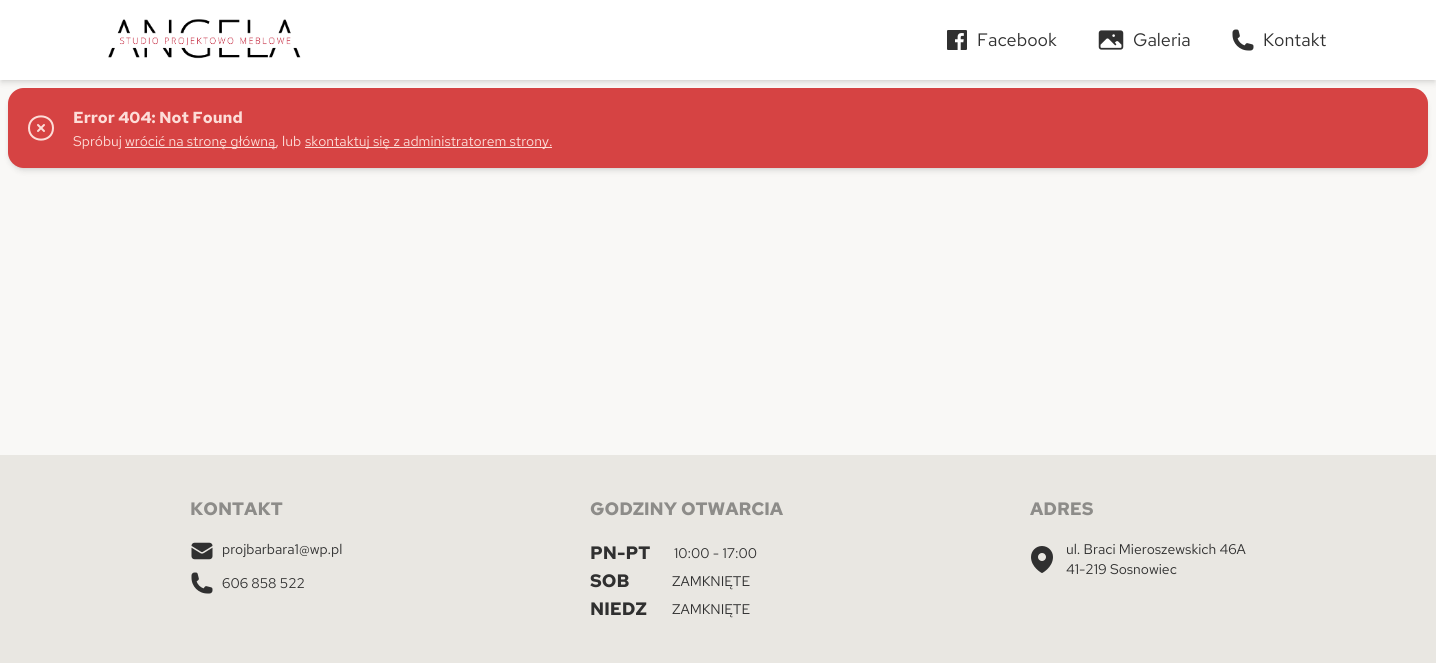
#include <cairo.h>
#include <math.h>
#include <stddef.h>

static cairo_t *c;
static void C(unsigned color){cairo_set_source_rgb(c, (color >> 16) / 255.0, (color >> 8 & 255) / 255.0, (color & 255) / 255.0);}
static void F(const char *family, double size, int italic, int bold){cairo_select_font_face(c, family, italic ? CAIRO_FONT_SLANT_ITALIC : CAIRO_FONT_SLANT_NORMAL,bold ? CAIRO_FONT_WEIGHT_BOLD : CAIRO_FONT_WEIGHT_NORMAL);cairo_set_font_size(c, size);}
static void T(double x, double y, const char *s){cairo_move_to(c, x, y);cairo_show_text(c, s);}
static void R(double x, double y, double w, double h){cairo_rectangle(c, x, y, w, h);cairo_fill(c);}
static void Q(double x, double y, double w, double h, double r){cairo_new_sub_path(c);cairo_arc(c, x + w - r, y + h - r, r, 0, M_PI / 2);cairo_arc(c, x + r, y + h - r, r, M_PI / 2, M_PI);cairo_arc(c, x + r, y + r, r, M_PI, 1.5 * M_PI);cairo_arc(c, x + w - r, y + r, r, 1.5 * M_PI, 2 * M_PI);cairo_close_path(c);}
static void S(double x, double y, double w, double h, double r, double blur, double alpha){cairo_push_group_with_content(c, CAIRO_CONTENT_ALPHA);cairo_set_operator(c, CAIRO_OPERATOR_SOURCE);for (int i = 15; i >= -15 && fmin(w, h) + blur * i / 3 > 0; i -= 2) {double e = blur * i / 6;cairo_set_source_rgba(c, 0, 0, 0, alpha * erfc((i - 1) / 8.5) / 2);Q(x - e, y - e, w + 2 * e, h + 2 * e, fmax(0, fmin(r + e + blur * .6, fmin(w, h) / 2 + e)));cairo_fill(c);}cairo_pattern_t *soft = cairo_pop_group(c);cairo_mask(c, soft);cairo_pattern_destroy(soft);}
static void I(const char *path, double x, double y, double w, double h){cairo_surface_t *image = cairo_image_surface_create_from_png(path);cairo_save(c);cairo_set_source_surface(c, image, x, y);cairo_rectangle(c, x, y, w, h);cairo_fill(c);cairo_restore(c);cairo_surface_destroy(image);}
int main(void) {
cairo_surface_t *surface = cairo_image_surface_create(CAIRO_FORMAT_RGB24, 1436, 663);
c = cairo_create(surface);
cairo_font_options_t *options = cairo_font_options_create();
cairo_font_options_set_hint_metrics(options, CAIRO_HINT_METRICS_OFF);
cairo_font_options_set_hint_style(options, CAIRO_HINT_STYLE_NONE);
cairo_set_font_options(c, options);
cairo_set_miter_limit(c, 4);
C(0xf9f8f6);
cairo_paint(c);
C(0x000000);
S(2,4,1432,76,0,2,.1);
S(10,92,1416,76,14,2,.1);
S(9,93,1418,78,15,3,.1);
C(0xd64343);
Q(8,88,1420,80,16);
cairo_fill(c);
Q(8.5,88.5,1419,79,15.5);
cairo_set_source_rgba(c,0.839,0.263,0.263,0.2);
cairo_set_line_width(c,1);
cairo_stroke(c);
C(0x000000);
S(1,5,1434,78,0,3,.1);
C(0xffffff);
R(0,0,1436,80);
I("1.png",108,19,193,40);
I("2.png",947,30,20,20);
F("Red Hat Text",18,0,0);
C(0x303030);
T(977,46,"Facebook");
I("3.png",1098,30,26,20);
T(1133,46,"Galeria");
I("4.png",1232,29,22,22);
T(1263,46,"Kontakt");
cairo_new_path(c);
cairo_move_to(c,38,125);
cairo_line_to(c,44,131);
cairo_move_to(c,44,125);
cairo_line_to(c,38,131);
cairo_move_to(c,53,128);
cairo_curve_to(c,53,143.5,29,143.5,29,128);
cairo_curve_to(c,29,112.5,53,112.5,53,128);
cairo_close_path(c);
C(0xfdddd8);
cairo_set_line_width(c,2);
cairo_set_line_cap(c,CAIRO_LINE_CAP_ROUND);
cairo_set_line_join(c,CAIRO_LINE_JOIN_ROUND);
cairo_stroke(c);
F("Red Hat Text",16,0,1);
T(73,123,"Error 404: Not Found");
F("Red Hat Text",14,0,0);
T(73,146,"Spróbuj");
R(125,147,151,1);
T(125,146,"wrócić na stronę główną, lub");
R(305,147,247,1);
T(305,146,"skontaktuj się z administratorem strony.");
C(0xe9e7e2);
R(0,455,1436,208);
F("Red Hat Text",18,0,1);
C(0x8d8c89);
T(190,515,"KONTAKT");
I("5.png",191,542,22,18);
F("Red Hat Text",14,0,0);
C(0x303030);
T(222,554,"projbarbara1@wp.pl");
I("6.png",191,572,22,22);
T(222,588,"606 858 522");
F("Red Hat Text",18,0,1);
C(0x8d8c89);
T(590,515,"GODZINY OTWARCIA");
C(0x303030);
T(590,559,"PN-PT");
F("Red Hat Text",14,0,0);
T(674,558,"10:00 - 17:00");
F("Red Hat Text",18,0,1);
T(590,587,"SOB");
F("Red Hat Text",14,0,0);
T(672,586,"ZAMKNIĘTE");
F("Red Hat Text",18,0,1);
T(590,615,"NIEDZ");
F("Red Hat Text",14,0,0);
T(672,614,"ZAMKNIĘTE");
F("Red Hat Text",18,0,1);
C(0x8d8c89);
T(1030,515,"ADRES");
I("7.png",1031,546,22,27);
F("Red Hat Text",14,0,0);
C(0x303030);
T(1066,554,"ul. Braci Mieroszewskich 46A");
T(1066,574,"41-219 Sosnowiec");
cairo_surface_write_to_png(surface, "o.png");
cairo_font_options_destroy(options);
cairo_destroy(c);
cairo_surface_destroy(surface);
return 0;
}
